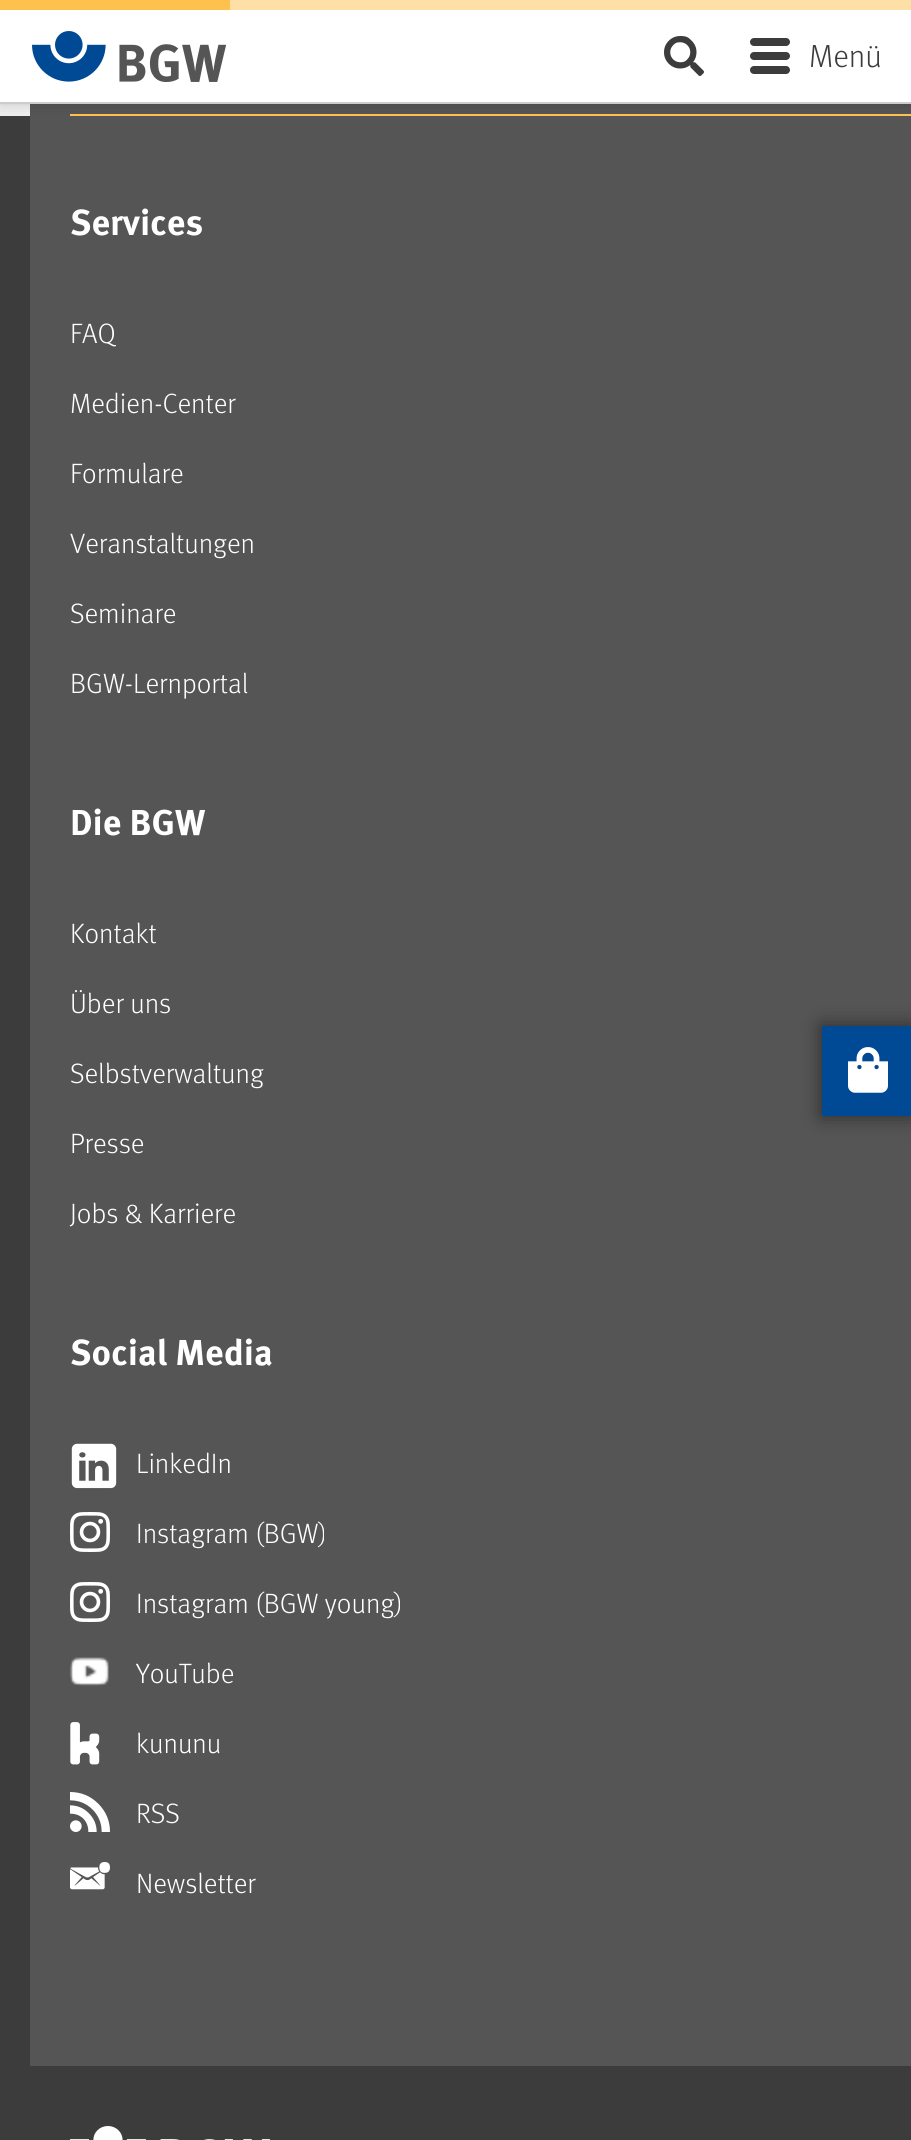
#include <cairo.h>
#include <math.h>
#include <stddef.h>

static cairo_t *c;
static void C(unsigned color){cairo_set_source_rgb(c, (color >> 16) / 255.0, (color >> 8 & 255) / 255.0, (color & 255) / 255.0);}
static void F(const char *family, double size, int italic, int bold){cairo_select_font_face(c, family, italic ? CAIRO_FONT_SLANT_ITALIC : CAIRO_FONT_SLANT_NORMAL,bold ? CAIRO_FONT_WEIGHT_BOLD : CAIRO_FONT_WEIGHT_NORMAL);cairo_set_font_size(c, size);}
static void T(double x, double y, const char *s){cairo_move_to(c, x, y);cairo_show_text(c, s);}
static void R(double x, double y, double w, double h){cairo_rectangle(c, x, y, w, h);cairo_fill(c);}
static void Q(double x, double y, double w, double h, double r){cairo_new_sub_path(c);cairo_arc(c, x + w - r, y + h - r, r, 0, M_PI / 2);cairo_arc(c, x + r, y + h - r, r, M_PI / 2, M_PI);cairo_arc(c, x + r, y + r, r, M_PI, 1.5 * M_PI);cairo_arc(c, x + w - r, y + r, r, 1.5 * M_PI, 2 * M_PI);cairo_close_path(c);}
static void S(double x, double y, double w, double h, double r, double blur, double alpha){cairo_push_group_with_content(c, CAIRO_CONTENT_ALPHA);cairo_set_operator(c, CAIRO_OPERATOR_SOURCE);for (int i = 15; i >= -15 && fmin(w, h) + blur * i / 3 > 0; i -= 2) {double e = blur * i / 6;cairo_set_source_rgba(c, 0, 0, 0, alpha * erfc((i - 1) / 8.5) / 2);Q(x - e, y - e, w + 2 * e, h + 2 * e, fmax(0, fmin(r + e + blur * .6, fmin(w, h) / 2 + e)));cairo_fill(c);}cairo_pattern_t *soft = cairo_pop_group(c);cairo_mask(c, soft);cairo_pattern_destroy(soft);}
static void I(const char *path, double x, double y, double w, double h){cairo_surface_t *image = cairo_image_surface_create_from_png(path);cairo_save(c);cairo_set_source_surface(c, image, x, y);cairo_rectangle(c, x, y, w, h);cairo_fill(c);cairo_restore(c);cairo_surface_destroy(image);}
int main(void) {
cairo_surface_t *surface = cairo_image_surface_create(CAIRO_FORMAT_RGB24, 911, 2140);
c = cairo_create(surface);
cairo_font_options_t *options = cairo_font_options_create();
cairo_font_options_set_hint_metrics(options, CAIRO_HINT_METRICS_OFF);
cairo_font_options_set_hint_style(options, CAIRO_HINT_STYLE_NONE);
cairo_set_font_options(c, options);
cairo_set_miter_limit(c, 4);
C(0xeeeeee);
cairo_paint(c);
C(0x555555);
R(30,104,881,1962);
C(0xfdc24e);
R(70,114,841,2);
C(0x3c3c3c);
R(0,116,30,1950);
C(0x000000);
S(0,-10,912,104,0,10,.5);
C(0xffffff);
R(0,10,911,92);
C(0xfee0a6);
R(230,0,681,10);
C(0xcccccc);
R(0,102,911,2);
C(0xfdc24e);
R(0,0,230,10);
I("1.png",32,31,195,51);
I("2.png",664,36,40,40);
C(0x3c3c3c);
Q(750,38,40,8,4);
cairo_fill(c);
Q(750,52,40,8,4);
cairo_fill(c);
Q(750,66,40,8,4);
cairo_fill(c);
F("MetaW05 Light",32,0,0);
T(809,67,"Menü");
F("MetaW05",36,0,1);
C(0xffffff);
T(70,235,"Services");
F("MetaW05 Light",28,0,0);
T(70,343,"FAQ");
T(70,413,"Medien-Center");
T(70,483,"Formulare");
T(70,553,"Veranstaltungen");
T(70,623,"Seminare");
T(70,693,"BGW-Lernportal");
F("MetaW05",36,0,1);
T(70,835,"Die BGW");
F("MetaW05 Light",28,0,0);
T(70,943,"Kontakt");
T(70,1013,"Über uns");
T(70,1083,"Selbstverwaltung");
T(70,1153,"Presse");
T(70,1223,"Jobs & Karriere");
F("MetaW05",36,0,1);
T(70,1365,"Social Media");
I("3.png",71,1443,46,46);
F("MetaW05 Light",28,0,0);
T(136,1473,"LinkedIn");
I("4.png",70,1512,40,40);
T(136,1543,"Instagram (BGW)");
I("4.png",70,1582,40,40);
T(136,1613,"Instagram (BGW young)");
I("5.png",70,1657,39,29);
T(136,1683,"YouTube");
I("6.png",70,1722,30,43);
T(136,1753,"kununu");
I("7.png",70,1792,40,40);
T(136,1823,"RSS");
I("8.png",70,1862,40,28);
T(136,1893,"Newsletter");
C(0x3c3c3c);
R(0,2066,911,74);
I("9.png",70,2126,200,14);
C(0x000000);
S(822,1026,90,90,0,10,.5);
C(0x004994);
R(822,1026,89,90);
I("10.png",848,1047,40,46);
cairo_surface_write_to_png(surface, "o.png");
cairo_font_options_destroy(options);
cairo_destroy(c);
cairo_surface_destroy(surface);
return 0;
}
